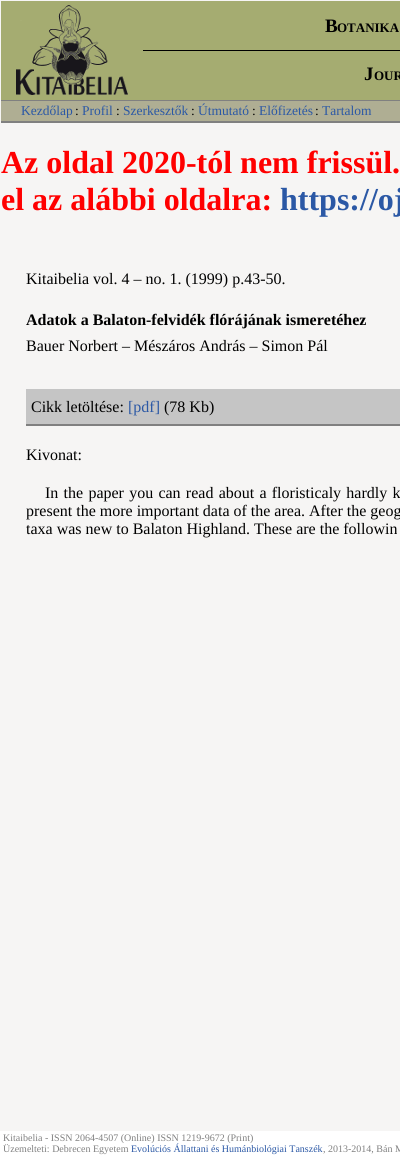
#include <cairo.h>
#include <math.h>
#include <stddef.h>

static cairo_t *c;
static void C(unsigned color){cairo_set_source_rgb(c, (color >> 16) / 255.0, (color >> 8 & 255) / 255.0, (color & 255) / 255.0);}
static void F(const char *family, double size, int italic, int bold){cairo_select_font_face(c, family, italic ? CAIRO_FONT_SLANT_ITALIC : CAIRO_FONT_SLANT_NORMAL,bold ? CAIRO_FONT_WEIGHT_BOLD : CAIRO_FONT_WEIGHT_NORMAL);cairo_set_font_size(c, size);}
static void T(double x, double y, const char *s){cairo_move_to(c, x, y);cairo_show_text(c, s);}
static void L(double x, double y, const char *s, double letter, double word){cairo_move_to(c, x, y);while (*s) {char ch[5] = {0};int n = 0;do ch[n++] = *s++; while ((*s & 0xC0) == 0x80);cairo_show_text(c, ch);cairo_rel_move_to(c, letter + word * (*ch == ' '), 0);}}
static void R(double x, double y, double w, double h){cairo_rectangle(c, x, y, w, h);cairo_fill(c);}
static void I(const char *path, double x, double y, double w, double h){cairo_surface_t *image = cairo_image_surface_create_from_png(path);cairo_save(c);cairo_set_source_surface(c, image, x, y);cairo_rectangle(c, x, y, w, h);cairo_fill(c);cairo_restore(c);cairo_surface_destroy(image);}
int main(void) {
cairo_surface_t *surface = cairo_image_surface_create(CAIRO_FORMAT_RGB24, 400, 1155);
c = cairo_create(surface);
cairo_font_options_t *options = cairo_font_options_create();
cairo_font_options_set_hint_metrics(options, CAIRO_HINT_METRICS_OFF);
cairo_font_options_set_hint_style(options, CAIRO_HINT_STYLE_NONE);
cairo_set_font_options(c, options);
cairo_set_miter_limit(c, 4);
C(0xffffff);
cairo_paint(c);
C(0xf6f5f4);
R(0,0,400,1131);
C(0xa5ac71);
R(1,1,399,99);
C(0x808080);
R(1,100,399,1);
I("1.png",16,5,112,90);
F("Liberation Serif",19,0,1);
C(0x000000);
T(325,32,"B");
F("Liberation Serif",13,0,1);
T(337,32,"OTANIKA");
R(143,50,257,1);
F("Liberation Serif",19,0,1);
T(364,80,"J");
F("Liberation Serif",13,0,1);
T(374,80,"OUR");
C(0xafae93);
R(1,101,399,20);
C(0x808080);
R(1,121,399,2);
F("Liberation Serif",13.5,0,0);
C(0x2b58a5);
T(21,115,"Kezdőlap");
C(0x000000);
T(75,115,":");
C(0x2b58a5);
T(82,115,"Profil");
C(0x000000);
T(116,115,":");
C(0x2b58a5);
T(123,115,"Szerkesztők");
C(0x000000);
T(191,115,":");
C(0x2b58a5);
T(198,115,"Útmutató");
C(0x000000);
T(252,115,":");
C(0x2b58a5);
T(259,115,"Előfizetés");
C(0x000000);
T(315,115,":");
C(0x2b58a5);
T(322,115,"Tartalom");
F("Liberation Serif",32,0,1);
C(0xff0000);
T(1,173,"Az oldal 2020-tól nem frissül.");
T(1,210,"el az alábbi oldalra:");
C(0x2b58a5);
T(280,210,"https://oj");
F("Liberation Serif",16,0,0);
C(0x000000);
T(26,284,"Kitaibelia vol. 4 – no. 1. (1999) p.43-50.");
F("Liberation Serif",16,0,1);
T(26,325,"Adatok a Balaton-felvidék flórájának ismeretéhez");
F("Liberation Serif",16,0,0);
T(26,351,"Bauer Norbert – Mészáros András – Simon Pál");
C(0xc5c5c5);
R(26,389,374,35);
C(0x808080);
R(26,424,374,2);
C(0x000000);
T(31,412,"Cikk letöltése:");
C(0x2b58a5);
T(128,412,"[pdf]");
C(0x000000);
T(164,412,"(78 Kb)");
T(26,460,"Kivonat:");
L(45,498,"In the paper you can read about a floristicaly hardly k",0,1.25);
T(26,516,"present the more important data of the area. After the geog");
T(26,534,"taxa was new to Balaton Highland. These are the followin");
F("Liberation Serif",10,0,0);
C(0x808080);
T(3,1141,"Kitaibelia - ISSN 2064-4507 (Online) ISSN 1219-9672 (Print)");
T(3,1152,"Üzemelteti: Debrecen Egyetem");
C(0x2b58a5);
T(131,1152,"Evolúciós Állattani és Humánbiológiai Tanszék");
C(0x808080);
T(323,1152,", 2013-2014, Bán M");
cairo_surface_write_to_png(surface, "o.png");
cairo_font_options_destroy(options);
cairo_destroy(c);
cairo_surface_destroy(surface);
return 0;
}
